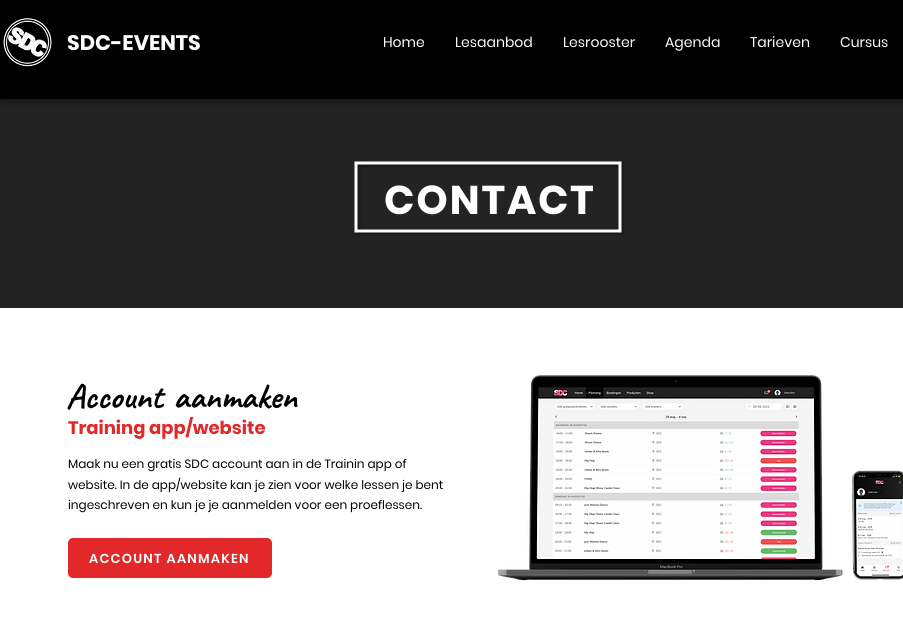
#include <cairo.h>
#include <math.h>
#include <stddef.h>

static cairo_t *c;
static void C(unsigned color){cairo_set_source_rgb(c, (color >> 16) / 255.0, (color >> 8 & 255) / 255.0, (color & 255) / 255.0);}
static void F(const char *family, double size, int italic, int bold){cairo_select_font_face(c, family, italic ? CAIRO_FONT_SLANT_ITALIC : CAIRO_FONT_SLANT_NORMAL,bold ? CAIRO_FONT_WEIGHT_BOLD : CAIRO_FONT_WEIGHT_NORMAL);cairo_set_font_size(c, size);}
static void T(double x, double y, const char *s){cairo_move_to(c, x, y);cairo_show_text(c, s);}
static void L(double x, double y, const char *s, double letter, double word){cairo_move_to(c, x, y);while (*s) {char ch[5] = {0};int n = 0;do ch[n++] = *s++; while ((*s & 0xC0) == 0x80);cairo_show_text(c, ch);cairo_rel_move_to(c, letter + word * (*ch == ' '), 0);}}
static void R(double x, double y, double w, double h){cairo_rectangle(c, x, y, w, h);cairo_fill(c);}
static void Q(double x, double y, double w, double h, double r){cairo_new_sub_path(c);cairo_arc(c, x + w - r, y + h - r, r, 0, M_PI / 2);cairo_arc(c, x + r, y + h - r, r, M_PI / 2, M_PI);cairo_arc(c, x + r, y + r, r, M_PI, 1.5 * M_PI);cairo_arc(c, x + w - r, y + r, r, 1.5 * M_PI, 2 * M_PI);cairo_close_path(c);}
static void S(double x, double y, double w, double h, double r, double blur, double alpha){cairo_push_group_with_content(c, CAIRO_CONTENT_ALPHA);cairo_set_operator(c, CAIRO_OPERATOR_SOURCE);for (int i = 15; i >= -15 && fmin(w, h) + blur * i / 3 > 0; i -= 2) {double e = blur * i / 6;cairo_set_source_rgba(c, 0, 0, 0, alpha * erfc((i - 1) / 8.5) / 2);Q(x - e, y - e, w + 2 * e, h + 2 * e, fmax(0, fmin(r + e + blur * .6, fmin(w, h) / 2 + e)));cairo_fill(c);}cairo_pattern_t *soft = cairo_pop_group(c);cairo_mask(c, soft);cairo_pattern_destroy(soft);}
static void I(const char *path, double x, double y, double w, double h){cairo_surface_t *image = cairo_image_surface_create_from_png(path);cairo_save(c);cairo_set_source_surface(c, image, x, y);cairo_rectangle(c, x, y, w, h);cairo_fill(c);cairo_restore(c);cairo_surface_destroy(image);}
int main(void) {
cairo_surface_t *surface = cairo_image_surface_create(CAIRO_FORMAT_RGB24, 903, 620);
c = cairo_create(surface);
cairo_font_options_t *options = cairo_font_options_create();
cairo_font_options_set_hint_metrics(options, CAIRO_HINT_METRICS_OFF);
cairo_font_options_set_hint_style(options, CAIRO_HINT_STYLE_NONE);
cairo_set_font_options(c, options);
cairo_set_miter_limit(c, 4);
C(0xffffff);
cairo_paint(c);
C(0x242323);
R(0,99,903,209);
C(0x000000);
S(-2,2,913,103,0,2.5,.24);
C(0x000000);
R(0,0,903,99);
I("1.png",3,18,49,49);
F("Poppins",21,0,1);
C(0xffffff);
T(67,50,"SDC-EVENTS");
F("Poppins",14,0,0);
T(383,47,"Home");
T(455,47,"Lesaanbod");
T(563,47,"Lesrooster");
T(665,47,"Agenda");
T(750,47,"Tarieven");
T(840,47,"Cursus");
I("2.png",354,161,270,74);
F("Poppins",40,0,1);
L(384,214,"CONTACT",2,0);
F("Caveat",35,0,1);
C(0x000000);
L(66,408,"Account aanmaken",0,2);
I("3.png",498,375,405,206);
F("Poppins",18,0,1);
C(0xe22828);
T(68,434,"Training app/website");
F("Poppins",12,0,0);
C(0x000000);
T(68,468,"Maak nu een gratis SDC account aan in de Trainin app of");
T(68,489,"website. In de app/website kan je zien voor welke lessen je bent");
T(68,509,"ingeschreven en kun je je aanmelden voor een proeflessen.");
C(0xe22828);
Q(68,538,204,40,5);
cairo_fill(c);
F("Poppins SemiBold",13,0,0);
C(0xffffff);
L(89,563,"ACCOUNT AANMAKEN",1.25,0);
cairo_surface_write_to_png(surface, "o.png");
cairo_font_options_destroy(options);
cairo_destroy(c);
cairo_surface_destroy(surface);
return 0;
}
